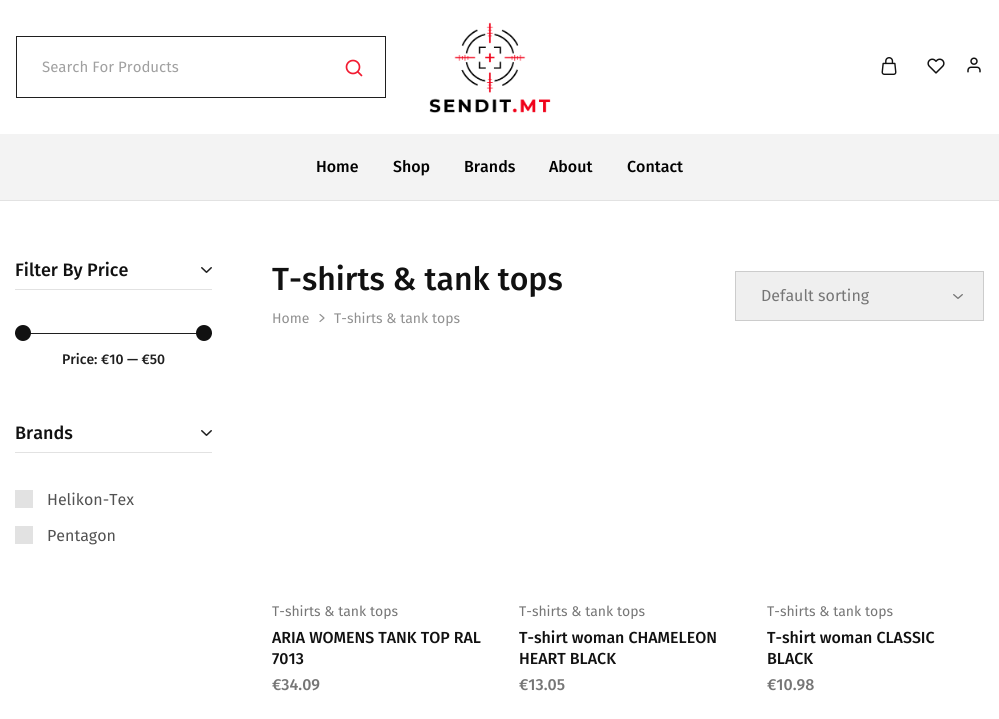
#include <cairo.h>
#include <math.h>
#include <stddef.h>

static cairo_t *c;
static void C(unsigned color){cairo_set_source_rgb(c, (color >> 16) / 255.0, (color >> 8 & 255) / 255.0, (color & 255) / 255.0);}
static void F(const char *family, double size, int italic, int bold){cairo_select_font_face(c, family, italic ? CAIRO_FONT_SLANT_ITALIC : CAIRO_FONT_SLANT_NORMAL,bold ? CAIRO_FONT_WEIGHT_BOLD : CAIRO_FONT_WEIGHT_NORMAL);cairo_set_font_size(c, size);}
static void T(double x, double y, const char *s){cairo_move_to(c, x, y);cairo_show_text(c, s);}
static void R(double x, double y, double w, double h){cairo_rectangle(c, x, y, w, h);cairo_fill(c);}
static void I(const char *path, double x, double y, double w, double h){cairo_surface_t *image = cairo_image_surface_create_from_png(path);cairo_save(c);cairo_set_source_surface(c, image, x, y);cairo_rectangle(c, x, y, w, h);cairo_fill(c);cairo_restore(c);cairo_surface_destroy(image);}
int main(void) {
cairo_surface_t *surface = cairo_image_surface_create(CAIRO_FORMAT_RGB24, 999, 719);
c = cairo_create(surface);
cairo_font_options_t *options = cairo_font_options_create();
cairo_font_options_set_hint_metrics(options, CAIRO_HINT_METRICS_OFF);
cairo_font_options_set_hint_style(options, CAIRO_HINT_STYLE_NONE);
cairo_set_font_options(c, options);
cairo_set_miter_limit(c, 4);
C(0xffffff);
cairo_paint(c);
C(0xe2e2e2);
R(0,200,999,1);
cairo_rectangle(c,16.5,36.5,369,61);
C(0x1f1f1f);
cairo_set_line_width(c,1);
cairo_stroke(c);
F("Fira Sans",15,0,0);
C(0xa0a0a0);
T(42,72,"Search For Products");
cairo_new_path(c);
cairo_arc(c,353,67,6.5,0,2 * M_PI);
C(0xf21b31);
cairo_set_line_width(c,1.7);
cairo_stroke(c);
cairo_new_path(c);
cairo_move_to(c,361.5,75.5);
cairo_line_to(c,358,72);
cairo_set_line_cap(c,CAIRO_LINE_CAP_ROUND);
cairo_set_line_join(c,CAIRO_LINE_JOIN_ROUND);
cairo_stroke(c);
I("1.png",429,22,122,91);
I("2.png",881,57,16,18);
I("3.png",927,58,18,16);
I("4.png",967,57,14,16);
C(0xf3f3f3);
R(0,134,999,66);
F("Fira Sans Medium",16,0,0);
C(0x010101);
T(316,172,"Home");
T(393,172,"Shop");
T(464,172,"Brands");
T(549,172,"About");
T(627,172,"Contact");
C(0xe2e2e2);
R(15,289,197,1);
F("Fira Sans Medium",18,0,0);
C(0x111111);
T(15,276,"Filter By Price");
I("5.png",201,267,11,6);
C(0x1f1f1f);
R(15,333,197,1);
C(0x111111);
cairo_arc(c,23,333,8,0,2 * M_PI);
cairo_fill(c);
cairo_arc(c,204,333,8,0,2 * M_PI);
cairo_fill(c);
F("Fira Sans Medium",14,0,0);
C(0x1f1f1f);
T(62,364,"Price: €10 — €50");
C(0xe2e2e2);
R(15,452,197,1);
F("Fira Sans Medium",18,0,0);
C(0x111111);
T(15,439,"Brands");
I("5.png",201,430,11,6);
C(0xe2e2e2);
R(15,490,18,18);
F("Fira Sans",16,0,0);
C(0x525252);
T(47,505,"Helikon-Tex");
C(0xe2e2e2);
R(15,526,18,18);
C(0x525252);
T(47,541,"Pentagon");
F("Fira Sans Medium",32,0,0);
C(0x111111);
T(272,290,"T-shirts & tank tops");
F("Fira Sans",14,0,0);
C(0x909090);
T(272,323,"Home");
cairo_new_path(c);
cairo_move_to(c,320,321.5);
cairo_line_to(c,324,318);
cairo_line_to(c,320,314.5);
cairo_set_line_width(c,1.2);
cairo_stroke(c);
T(334,323,"T-shirts & tank tops");
C(0xefefef);
R(736,272,247,48);
I("6.png",953,294,10,5);
cairo_rectangle(c,735.5,271.5,248,49);
C(0xcccccc);
cairo_set_line_width(c,1);
cairo_set_line_cap(c,CAIRO_LINE_CAP_BUTT);
cairo_set_line_join(c,CAIRO_LINE_JOIN_MITER);
cairo_stroke(c);
F("Fira Sans",16,0,0);
C(0x767676);
T(761,301,"Default sorting");
F("Fira Sans",14,0,0);
T(272,616,"T-shirts & tank tops");
F("Fira Sans Medium",16,0,0);
C(0x111111);
T(272,643,"ARIA WOMENS TANK TOP RAL");
T(272,664,"7013");
C(0x767676);
T(272,690,"€34.09");
F("Fira Sans",14,0,0);
T(519,616,"T-shirts & tank tops");
F("Fira Sans Medium",16,0,0);
C(0x111111);
T(519,643,"T-shirt woman CHAMELEON");
T(519,664,"HEART BLACK");
C(0x767676);
T(519,690,"€13.05");
F("Fira Sans",14,0,0);
T(767,616,"T-shirts & tank tops");
F("Fira Sans Medium",16,0,0);
C(0x111111);
T(767,643,"T-shirt woman CLASSIC");
T(767,664,"BLACK");
C(0x767676);
T(767,690,"€10.98");
cairo_surface_write_to_png(surface, "o.png");
cairo_font_options_destroy(options);
cairo_destroy(c);
cairo_surface_destroy(surface);
return 0;
}
